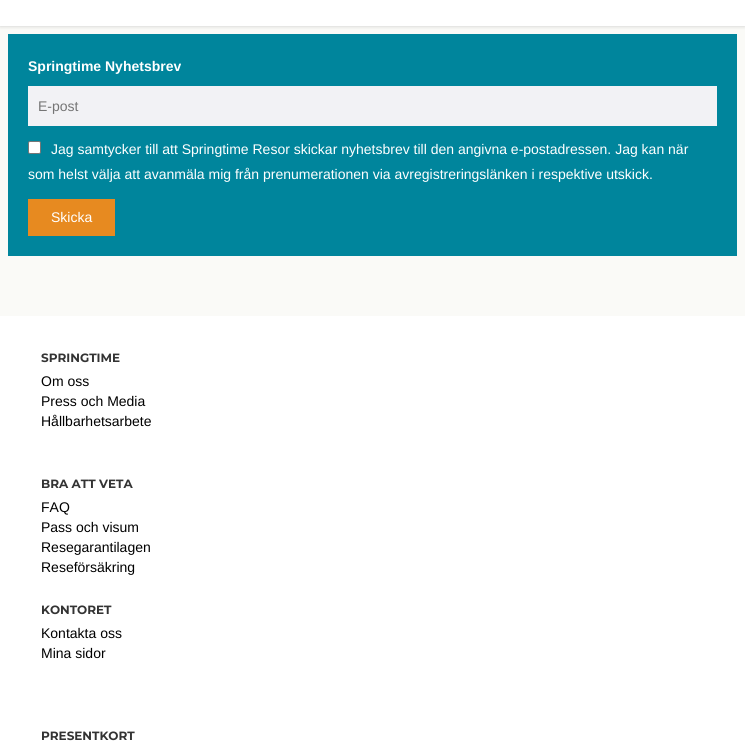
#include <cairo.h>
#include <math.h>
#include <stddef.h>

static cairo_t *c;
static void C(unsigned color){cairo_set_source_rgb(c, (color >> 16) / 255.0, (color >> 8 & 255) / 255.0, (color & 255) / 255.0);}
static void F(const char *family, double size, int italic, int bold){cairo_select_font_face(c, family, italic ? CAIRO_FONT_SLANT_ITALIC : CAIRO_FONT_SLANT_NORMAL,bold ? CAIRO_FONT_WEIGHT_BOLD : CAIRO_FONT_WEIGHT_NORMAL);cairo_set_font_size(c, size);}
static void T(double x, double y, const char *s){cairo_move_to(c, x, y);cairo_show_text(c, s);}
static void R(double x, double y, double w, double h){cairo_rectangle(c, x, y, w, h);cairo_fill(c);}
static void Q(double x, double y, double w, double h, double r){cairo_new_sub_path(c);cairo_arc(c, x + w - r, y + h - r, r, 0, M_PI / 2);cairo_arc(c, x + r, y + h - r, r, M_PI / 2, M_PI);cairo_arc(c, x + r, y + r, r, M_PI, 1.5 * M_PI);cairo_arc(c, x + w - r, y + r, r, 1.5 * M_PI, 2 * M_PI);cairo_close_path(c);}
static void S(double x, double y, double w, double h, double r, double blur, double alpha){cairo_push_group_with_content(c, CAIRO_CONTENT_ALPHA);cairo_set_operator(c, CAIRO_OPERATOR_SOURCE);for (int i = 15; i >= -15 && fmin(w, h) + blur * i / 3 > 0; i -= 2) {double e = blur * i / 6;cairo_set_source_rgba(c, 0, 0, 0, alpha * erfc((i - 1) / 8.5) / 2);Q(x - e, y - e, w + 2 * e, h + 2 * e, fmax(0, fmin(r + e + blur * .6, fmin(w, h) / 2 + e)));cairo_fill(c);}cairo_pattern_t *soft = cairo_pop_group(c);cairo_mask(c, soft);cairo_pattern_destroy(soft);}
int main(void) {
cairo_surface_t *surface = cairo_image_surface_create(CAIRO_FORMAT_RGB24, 745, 745);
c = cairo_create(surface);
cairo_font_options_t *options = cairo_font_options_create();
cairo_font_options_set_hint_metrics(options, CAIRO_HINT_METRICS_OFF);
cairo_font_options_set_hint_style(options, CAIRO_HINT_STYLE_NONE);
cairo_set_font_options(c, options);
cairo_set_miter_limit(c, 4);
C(0xffffff);
cairo_paint(c);
C(0xfafaf7);
R(0,26,745,290);
C(0x000000);
S(0,-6,745,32,0,2,.2);
C(0xffffff);
R(0,0,745,26);
C(0x00859c);
R(8,34,729,222);
F("Liberation Sans",14,0,1);
C(0xffffff);
T(28,71,"Springtime Nyhetsbrev");
C(0xf2f2f5);
R(28,86,689,40);
F("Liberation Sans",14,0,0);
C(0x757575);
T(38,111,"E-post");
C(0xffffff);
Q(28.5,141.5,12,12,1.5);
cairo_fill_preserve(c);
C(0x767676);
cairo_set_line_width(c,1);
cairo_stroke(c);
C(0xffffff);
T(51,154,"Jag samtycker till att Springtime Resor skickar nyhetsbrev till den angivna e-postadressen. Jag kan när");
T(28,179,"som helst välja att avanmäla mig från prenumerationen via avregistreringslänken i respektive utskick.");
C(0xe78a20);
R(28,199,87,37);
C(0xffffff);
T(51,222,"Skicka");
F("Montserrat",12,0,1);
C(0x333333);
T(41,362,"SPRINGTIME");
F("Liberation Sans",14,0,0);
C(0x000000);
T(41,386,"Om oss");
T(41,406,"Press och Media");
T(41,426,"Hållbarhetsarbete");
F("Montserrat",12,0,1);
C(0x333333);
T(41,488,"BRA ATT VETA");
F("Liberation Sans",14,0,0);
C(0x000000);
T(41,512,"FAQ");
T(41,532,"Pass och visum");
T(41,552,"Resegarantilagen");
T(41,572,"Reseförsäkring");
F("Montserrat",12,0,1);
C(0x333333);
T(41,614,"KONTORET");
F("Liberation Sans",14,0,0);
C(0x000000);
T(41,638,"Kontakta oss");
T(41,658,"Mina sidor");
F("Montserrat",12,0,1);
C(0x333333);
T(41,740,"PRESENTKORT");
cairo_surface_write_to_png(surface, "o.png");
cairo_font_options_destroy(options);
cairo_destroy(c);
cairo_surface_destroy(surface);
return 0;
}
